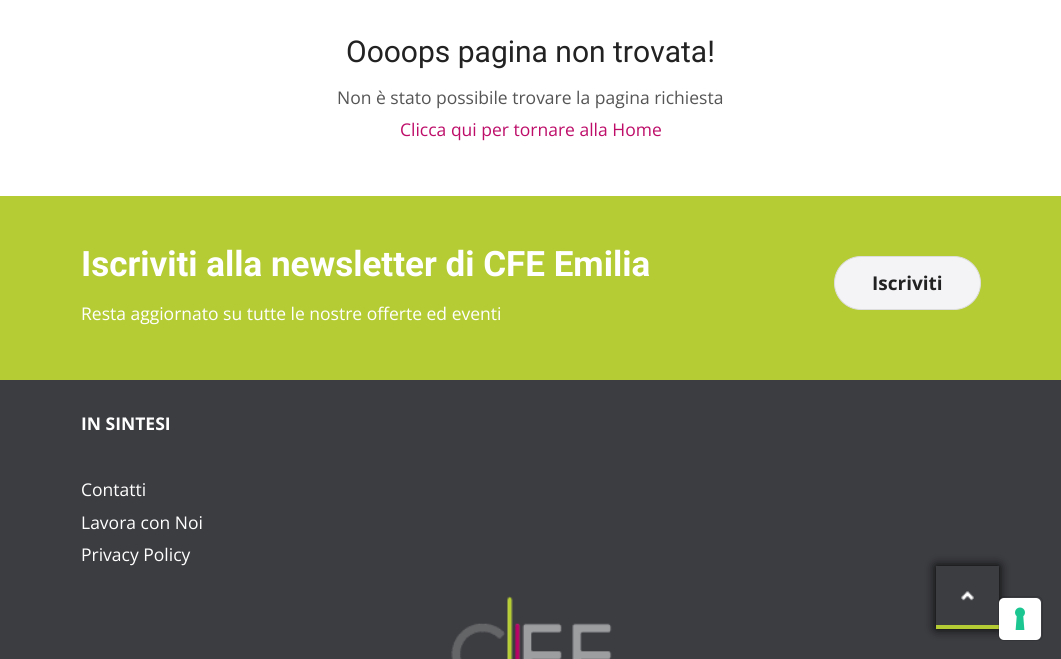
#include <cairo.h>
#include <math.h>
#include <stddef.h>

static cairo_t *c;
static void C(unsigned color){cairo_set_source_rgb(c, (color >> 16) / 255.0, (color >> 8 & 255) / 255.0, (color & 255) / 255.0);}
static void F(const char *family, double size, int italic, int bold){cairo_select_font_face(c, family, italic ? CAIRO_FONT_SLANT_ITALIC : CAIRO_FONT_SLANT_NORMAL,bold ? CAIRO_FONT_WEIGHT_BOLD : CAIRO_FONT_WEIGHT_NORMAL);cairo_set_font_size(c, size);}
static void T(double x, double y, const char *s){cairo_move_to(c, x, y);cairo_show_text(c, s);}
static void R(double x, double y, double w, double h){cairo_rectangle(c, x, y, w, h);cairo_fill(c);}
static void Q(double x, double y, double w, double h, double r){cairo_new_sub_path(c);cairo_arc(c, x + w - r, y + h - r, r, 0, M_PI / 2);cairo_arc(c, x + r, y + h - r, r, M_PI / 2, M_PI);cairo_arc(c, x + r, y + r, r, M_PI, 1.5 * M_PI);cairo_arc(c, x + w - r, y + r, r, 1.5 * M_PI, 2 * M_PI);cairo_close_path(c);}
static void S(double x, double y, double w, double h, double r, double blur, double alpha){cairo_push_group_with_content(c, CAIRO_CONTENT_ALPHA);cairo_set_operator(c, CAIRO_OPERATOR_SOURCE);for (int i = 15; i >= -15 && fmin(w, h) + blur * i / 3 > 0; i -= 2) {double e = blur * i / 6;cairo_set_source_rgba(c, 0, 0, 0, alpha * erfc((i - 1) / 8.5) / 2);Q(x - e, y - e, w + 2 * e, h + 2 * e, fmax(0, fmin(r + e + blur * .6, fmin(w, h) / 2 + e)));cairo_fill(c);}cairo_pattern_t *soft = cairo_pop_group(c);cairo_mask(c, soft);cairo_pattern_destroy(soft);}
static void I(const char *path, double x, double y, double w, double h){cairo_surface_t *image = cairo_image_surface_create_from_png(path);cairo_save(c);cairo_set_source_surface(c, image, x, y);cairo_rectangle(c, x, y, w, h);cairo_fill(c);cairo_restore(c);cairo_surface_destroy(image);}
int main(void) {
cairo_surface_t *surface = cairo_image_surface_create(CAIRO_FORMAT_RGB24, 1061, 659);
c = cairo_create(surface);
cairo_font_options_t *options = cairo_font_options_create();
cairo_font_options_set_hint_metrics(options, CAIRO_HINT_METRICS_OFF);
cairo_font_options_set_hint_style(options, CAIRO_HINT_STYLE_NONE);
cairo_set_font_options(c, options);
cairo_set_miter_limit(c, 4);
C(0xffffff);
cairo_paint(c);
F("Roboto",30,0,0);
C(0x222222);
T(346,62,"Oooops pagina non trovata!");
F("Open Sans",17.5,0,0);
C(0x555555);
T(337,104,"Non è stato possibile trovare la pagina richiesta");
C(0xbd0d69);
T(400,136,"Clicca qui per tornare alla Home");
C(0xb5cc35);
R(0,196,1061,184);
F("Roboto",35,0,1);
C(0xffffff);
T(81,276,"Iscriviti alla newsletter di CFE Emilia");
F("Open Sans",17.5,0,0);
T(81,320,"Resta aggiornato su tutte le nostre offerte ed eventi");
C(0xf4f4f7);
Q(834.5,256.5,146,53,26.5);
cairo_fill_preserve(c);
C(0xdddddd);
cairo_set_line_width(c,1);
cairo_stroke(c);
F("Open Sans",19,0,1);
C(0x222222);
T(872,290,"Iscriviti");
C(0x3c3d41);
R(0,380,1061,279);
F("Open Sans",17.5,0,1);
C(0xffffff);
T(81,430,"IN SINTESI");
F("Open Sans",17.5,0,0);
T(81,496,"Contatti");
T(81,529,"Lavora con Noi");
T(81,561,"Privacy Policy");
I("1.png",451,596,161,63);
C(0x000000);
S(936,566,63,63,0,5.5,1);
C(0x3c3d41);
R(936,566,63,59);
I("2.png",961,591,13,10);
C(0xb5cc35);
R(936,625,63,4);
Q(998.5,596.5,44,44,5.5);
cairo_set_source_rgba(c,0,0,0,0.15);
cairo_stroke(c);
C(0xffffff);
Q(999,598,42,42,5);
cairo_fill(c);
I("3.png",1015,607,10,23);
cairo_surface_write_to_png(surface, "o.png");
cairo_font_options_destroy(options);
cairo_destroy(c);
cairo_surface_destroy(surface);
return 0;
}
